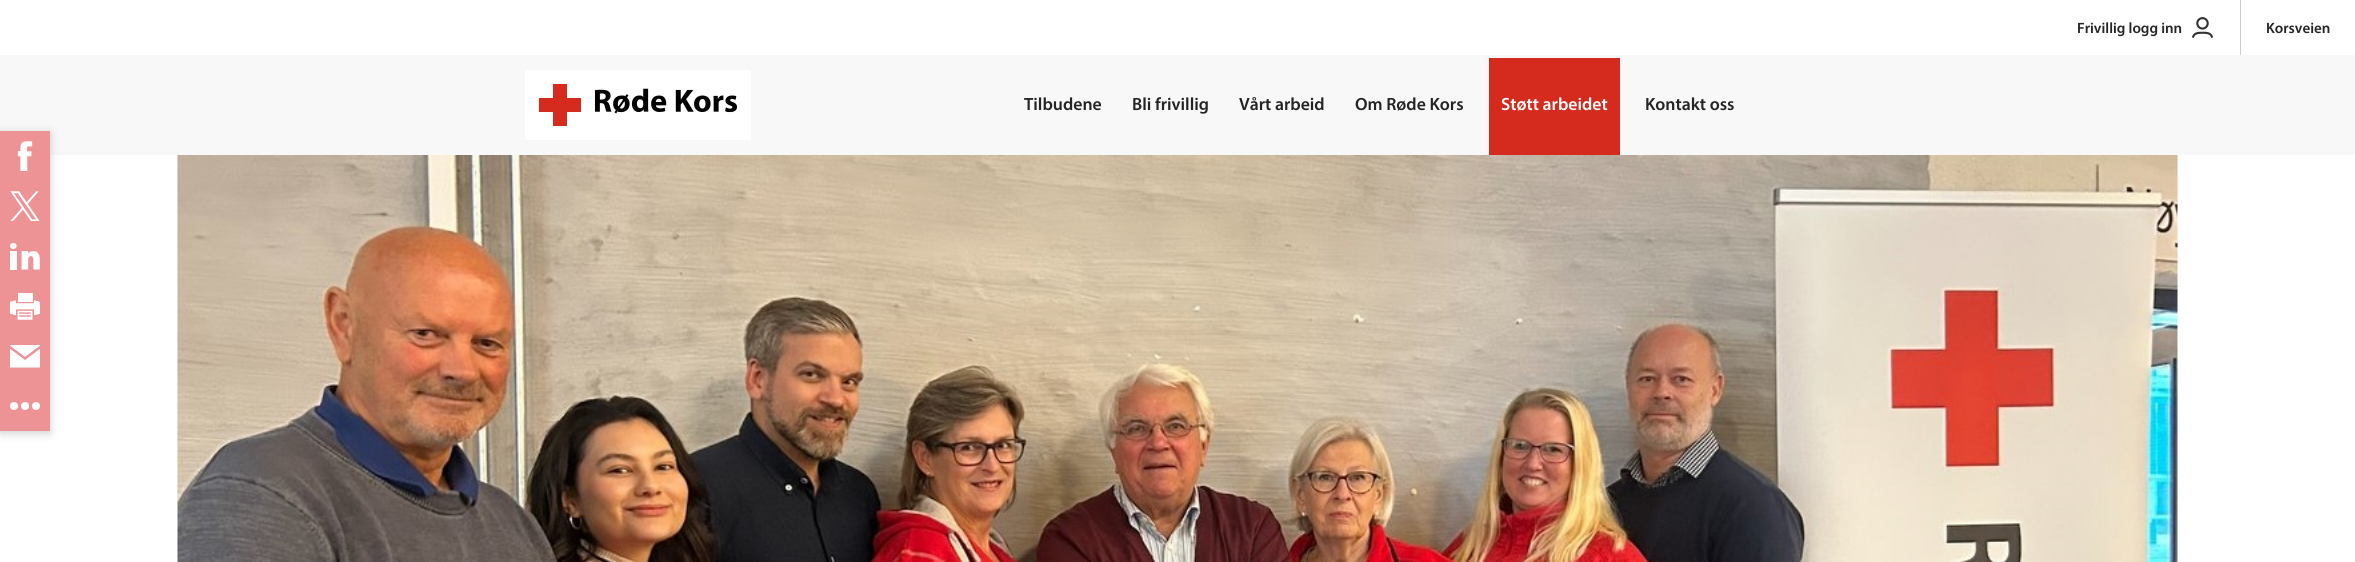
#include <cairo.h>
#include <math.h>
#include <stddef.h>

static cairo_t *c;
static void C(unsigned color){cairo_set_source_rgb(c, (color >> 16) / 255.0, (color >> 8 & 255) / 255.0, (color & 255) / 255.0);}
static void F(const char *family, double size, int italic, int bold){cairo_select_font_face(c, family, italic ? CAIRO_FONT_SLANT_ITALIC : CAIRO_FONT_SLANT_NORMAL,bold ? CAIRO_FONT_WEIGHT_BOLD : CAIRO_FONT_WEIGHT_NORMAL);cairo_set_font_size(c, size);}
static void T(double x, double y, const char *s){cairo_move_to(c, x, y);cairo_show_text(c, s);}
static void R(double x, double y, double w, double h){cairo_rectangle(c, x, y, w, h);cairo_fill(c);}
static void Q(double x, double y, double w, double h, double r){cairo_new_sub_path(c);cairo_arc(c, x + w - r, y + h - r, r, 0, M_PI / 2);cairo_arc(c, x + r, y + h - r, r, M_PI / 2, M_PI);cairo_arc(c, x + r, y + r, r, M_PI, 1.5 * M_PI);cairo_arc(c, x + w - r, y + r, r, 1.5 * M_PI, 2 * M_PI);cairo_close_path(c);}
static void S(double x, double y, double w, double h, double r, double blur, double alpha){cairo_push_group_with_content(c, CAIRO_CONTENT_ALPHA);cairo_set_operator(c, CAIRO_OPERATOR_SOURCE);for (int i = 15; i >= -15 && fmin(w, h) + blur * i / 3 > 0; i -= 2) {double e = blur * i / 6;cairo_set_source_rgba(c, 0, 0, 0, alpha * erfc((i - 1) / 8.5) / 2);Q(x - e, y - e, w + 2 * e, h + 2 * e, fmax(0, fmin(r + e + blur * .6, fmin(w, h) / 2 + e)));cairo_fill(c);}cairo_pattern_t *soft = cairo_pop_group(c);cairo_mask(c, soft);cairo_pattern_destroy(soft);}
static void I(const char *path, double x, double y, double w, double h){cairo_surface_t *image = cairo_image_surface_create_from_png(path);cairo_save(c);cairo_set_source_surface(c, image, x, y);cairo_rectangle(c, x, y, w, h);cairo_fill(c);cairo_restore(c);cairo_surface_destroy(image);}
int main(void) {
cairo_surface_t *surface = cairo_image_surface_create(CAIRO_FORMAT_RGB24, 2355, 562);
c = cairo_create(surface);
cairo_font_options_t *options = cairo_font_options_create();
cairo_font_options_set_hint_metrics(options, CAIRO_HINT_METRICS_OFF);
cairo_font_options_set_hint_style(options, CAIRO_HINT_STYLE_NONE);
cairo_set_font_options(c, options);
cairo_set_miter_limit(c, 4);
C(0xffffff);
cairo_paint(c);
C(0xf8f8f9);
R(0,55,2355,100);
F("Myriad SemiBold",15,0,0);
C(0x242424);
T(2077,33,"Frivillig logg inn");
I("1.png",2192,17,21,21);
C(0xcccccc);
R(2240,0,1,55);
C(0x242424);
T(2266,33,"Korsveien");
I("2.png",525,70,226,70);
F("Myriad SemiBold",17.75,0,0);
T(1024,110,"Tilbudene");
T(1132,110,"Bli frivillig");
T(1239,110,"Vårt arbeid");
T(1355,110,"Om Røde Kors");
C(0xd52b1e);
R(1489,58,131,97);
C(0xffffff);
T(1501,110,"Støtt arbeidet");
C(0x242424);
T(1645,110,"Kontakt oss");
C(0x000000);
S(0,133,50,300,0,4.5,.2);
C(0xed9396);
R(0,131,50,300);
I("3.png",17,141,16,30);
I("4.png",10,191,30,30);
I("5.png",10,243,30,27);
I("6.png",10,293,30,27);
I("7.png",10,345,30,23);
C(0xffffff);
cairo_arc(c,14,406,4,0,2 * M_PI);
cairo_fill(c);
cairo_arc(c,25,406,4,0,2 * M_PI);
cairo_fill(c);
cairo_arc(c,36,406,4,0,2 * M_PI);
cairo_fill(c);
I("8.png",177,155,2001,407);
cairo_surface_write_to_png(surface, "o.png");
cairo_font_options_destroy(options);
cairo_destroy(c);
cairo_surface_destroy(surface);
return 0;
}
